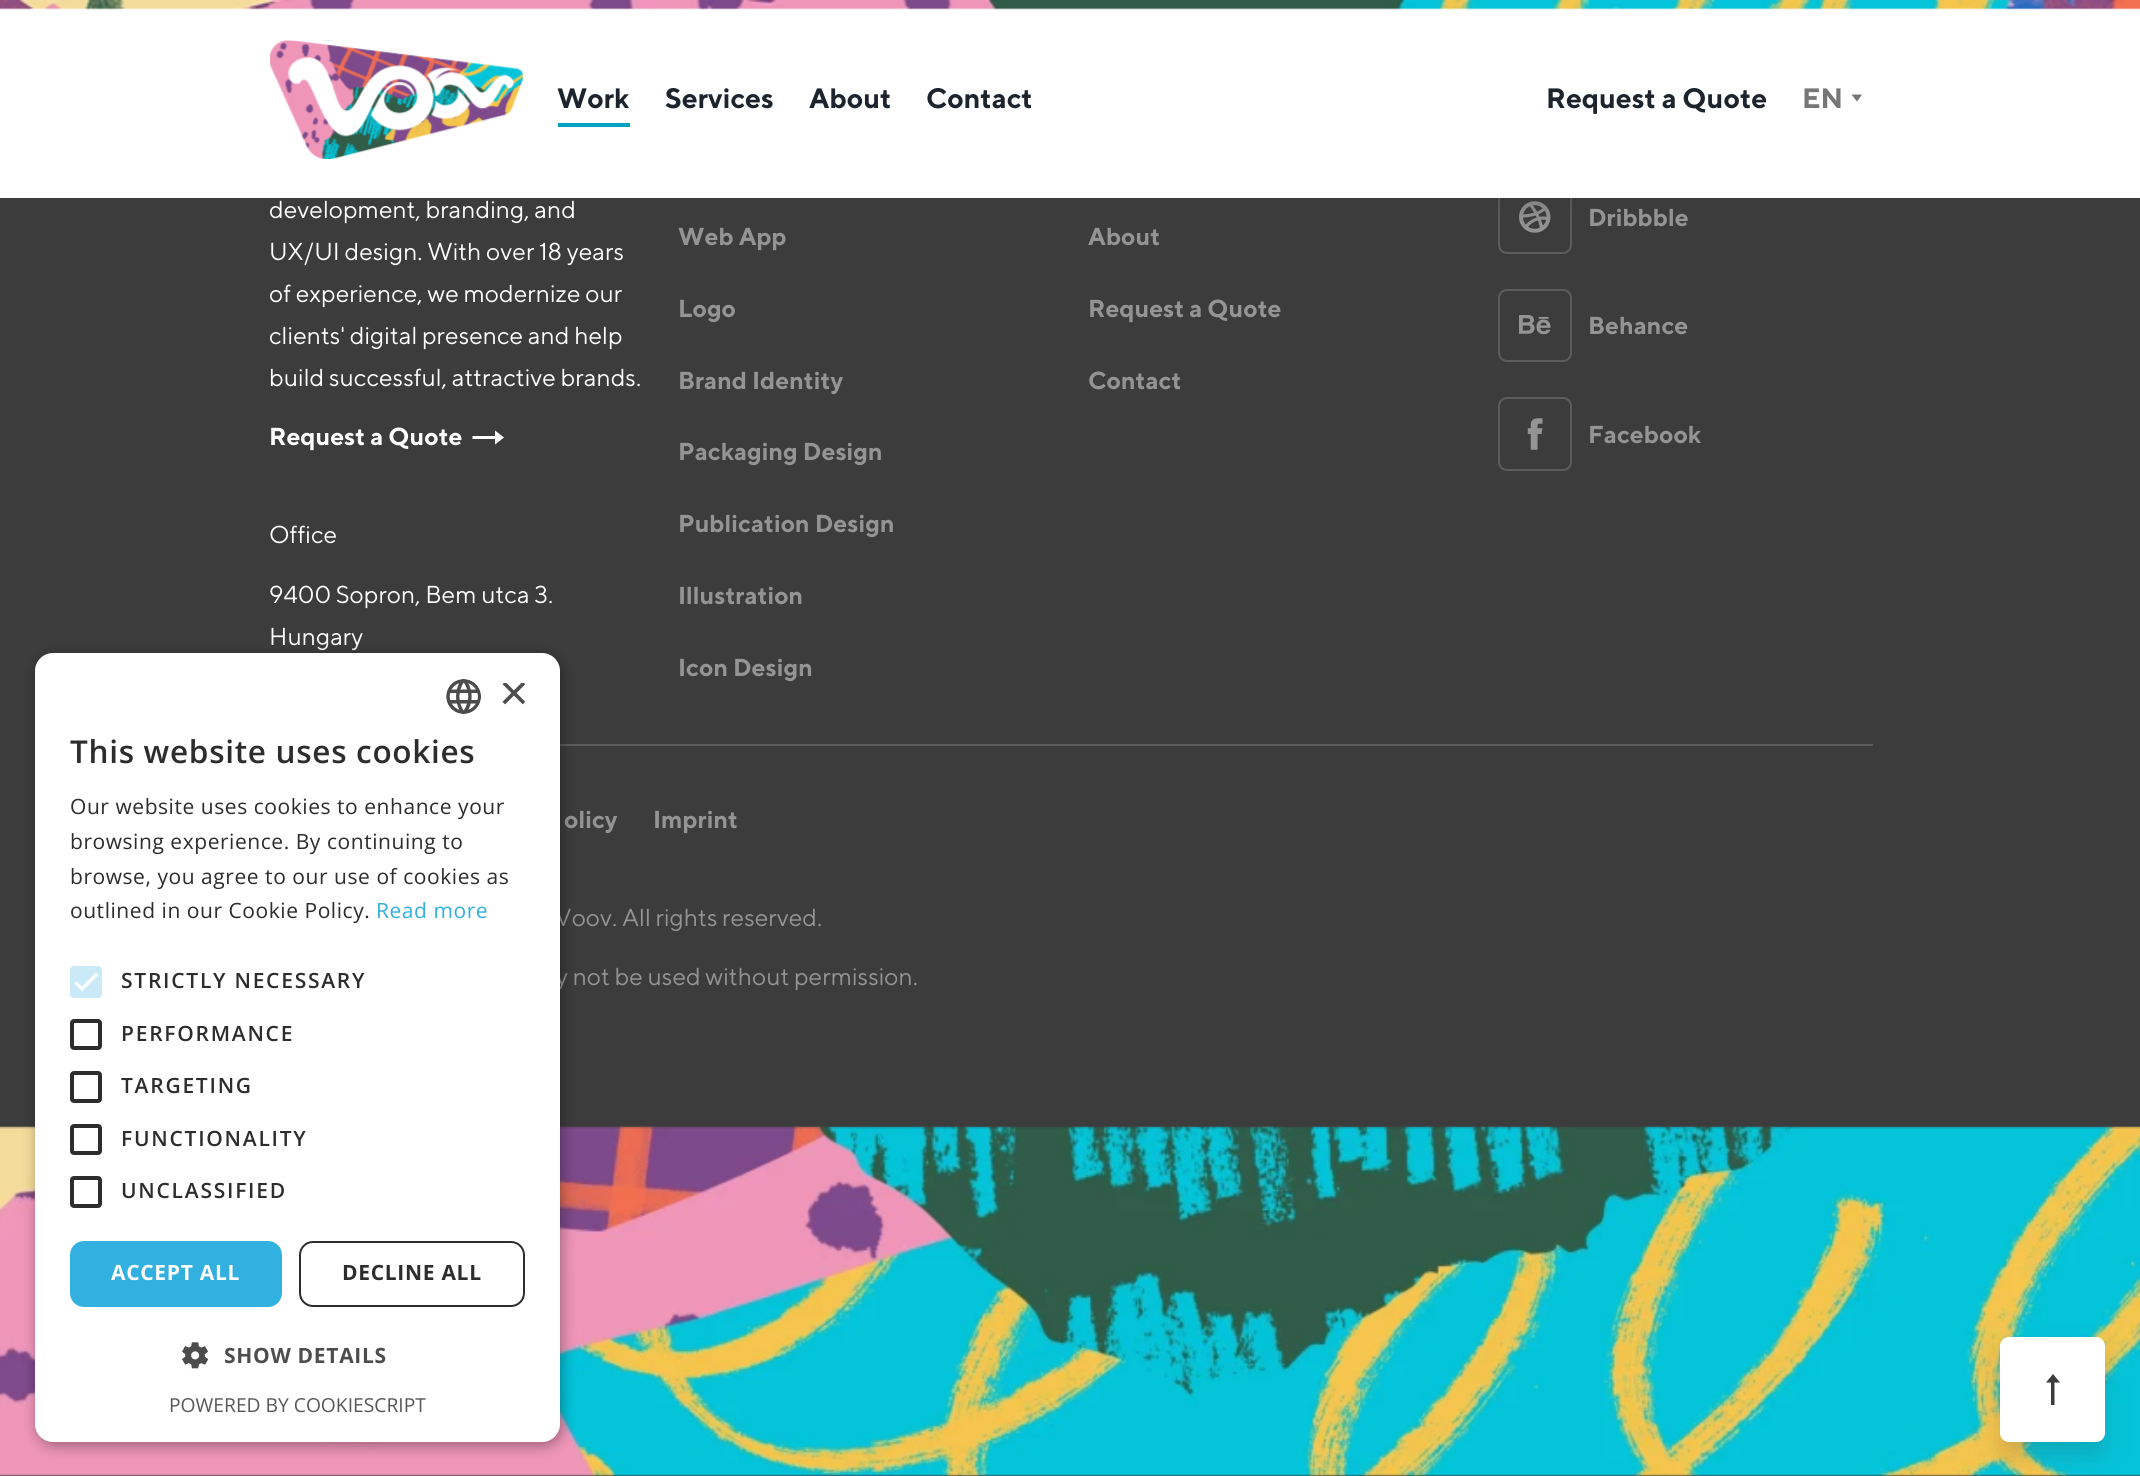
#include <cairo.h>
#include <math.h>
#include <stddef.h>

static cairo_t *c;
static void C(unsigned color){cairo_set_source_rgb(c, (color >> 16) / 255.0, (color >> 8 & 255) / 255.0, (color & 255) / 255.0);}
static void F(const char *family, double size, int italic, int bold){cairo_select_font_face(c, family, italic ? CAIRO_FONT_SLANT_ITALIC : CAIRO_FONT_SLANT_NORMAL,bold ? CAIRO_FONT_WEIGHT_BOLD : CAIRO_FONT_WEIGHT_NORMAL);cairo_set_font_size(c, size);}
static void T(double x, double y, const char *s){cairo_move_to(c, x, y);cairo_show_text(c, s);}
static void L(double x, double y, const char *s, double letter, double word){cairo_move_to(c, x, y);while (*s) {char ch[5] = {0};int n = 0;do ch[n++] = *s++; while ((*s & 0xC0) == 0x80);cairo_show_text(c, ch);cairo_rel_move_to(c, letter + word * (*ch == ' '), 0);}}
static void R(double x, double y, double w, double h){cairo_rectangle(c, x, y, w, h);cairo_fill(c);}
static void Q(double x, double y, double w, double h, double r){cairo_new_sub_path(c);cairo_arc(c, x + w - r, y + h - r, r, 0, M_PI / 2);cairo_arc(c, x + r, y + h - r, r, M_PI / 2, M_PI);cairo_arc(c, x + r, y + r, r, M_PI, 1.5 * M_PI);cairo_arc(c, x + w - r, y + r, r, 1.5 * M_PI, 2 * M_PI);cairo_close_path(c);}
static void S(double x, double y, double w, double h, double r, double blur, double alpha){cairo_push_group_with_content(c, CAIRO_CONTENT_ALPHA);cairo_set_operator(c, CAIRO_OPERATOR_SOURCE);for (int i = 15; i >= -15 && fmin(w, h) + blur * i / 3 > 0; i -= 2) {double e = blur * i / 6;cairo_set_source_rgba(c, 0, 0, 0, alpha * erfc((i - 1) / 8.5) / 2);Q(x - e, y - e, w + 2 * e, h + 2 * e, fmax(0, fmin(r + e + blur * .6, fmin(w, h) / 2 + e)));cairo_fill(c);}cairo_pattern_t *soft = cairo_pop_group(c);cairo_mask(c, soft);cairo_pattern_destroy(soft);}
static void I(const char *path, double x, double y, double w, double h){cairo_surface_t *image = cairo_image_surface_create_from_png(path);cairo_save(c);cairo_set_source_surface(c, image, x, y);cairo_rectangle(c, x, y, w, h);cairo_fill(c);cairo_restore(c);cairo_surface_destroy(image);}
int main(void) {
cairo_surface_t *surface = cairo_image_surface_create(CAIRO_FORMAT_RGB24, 2140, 1476);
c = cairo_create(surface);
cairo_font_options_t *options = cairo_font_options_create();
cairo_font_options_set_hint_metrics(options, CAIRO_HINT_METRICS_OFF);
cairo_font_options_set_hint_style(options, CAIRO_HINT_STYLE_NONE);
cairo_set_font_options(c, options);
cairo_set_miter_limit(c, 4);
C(0x3c3c3c);
cairo_paint(c);
I("4.png",1519,201,32,32);
Q(1499,181,72,72,8);
C(0x5e5d5d);
cairo_stroke(c);
C(0x3c3c3c);
S(0,14,2140,198,0,13,.2);
C(0xffffff);
R(0,8,2140,190);
I("1.png",0,0,2140,10);
I("2.png",270,40,253,119);
C(0x00a2c4);
R(558,123,72,4);
F("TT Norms",28,0,1);
C(0x1d242e);
T(557,108,"Work");
T(665,108,"Services");
T(809,108,"About");
T(926,108,"Contact");
T(1546,108,"Request a Quote");
C(0x767676);
cairo_new_path(c);
cairo_move_to(c,1851.5,94.5);
cairo_line_to(c,1857,101.5);
cairo_line_to(c,1862,94.5);
cairo_close_path(c);
cairo_fill(c);
T(1802,108,"EN");
I("3.png",0,1126,2140,350);
F("TT Norms",24.5,0,0);
C(0xffffff);
T(269,218,"development, branding, and");
T(269,260,"UX/UI design. With over 18 years");
T(269,302,"of experience, we modernize our");
T(269,344,"clients' digital presence and help");
T(269,386,"build successful, attractive brands.");
cairo_new_path(c);
cairo_move_to(c,504,437.5);
cairo_line_to(c,495,444.5);
cairo_line_to(c,495,439);
cairo_line_to(c,472.5,439);
cairo_line_to(c,472.5,436);
cairo_line_to(c,495,436);
cairo_line_to(c,495,430.5);
cairo_close_path(c);
cairo_fill(c);
F("TT Norms",24.5,0,1);
T(269,445,"Request a Quote");
F("TT Norms",24.5,0,0);
T(269,543,"Office");
T(269,603,"9400 Sopron, Bem utca 3.");
T(269,645,"Hungary");
F("TT Norms",24.5,0,1);
C(0x949494);
T(678,245,"Web App");
T(678,317,"Logo");
T(678,389,"Brand Identity");
T(678,460,"Packaging Design");
T(678,532,"Publication Design");
T(678,604,"Illustration");
T(678,676,"Icon Design");
T(1088,245,"About");
T(1088,317,"Request a Quote");
T(1088,389,"Contact");
T(1588,226,"Dribbble");
I("5.png",1519,315,32,20);
Q(1499,290,72,71,8);
C(0x5e5d5d);
cairo_stroke(c);
C(0x949494);
T(1588,334,"Behance");
I("6.png",1527,418,16,32);
Q(1499,398,72,72,8);
C(0x5e5d5d);
cairo_stroke(c);
C(0x949494);
T(1588,443,"Facebook");
C(0x5e5d5d);
R(560,744,1313,2);
C(0x949494);
T(564,828,"olicy");
T(653,828,"Imprint");
F("TT Norms",24.5,0,0);
T(555,926,"Voov. All rights reserved.");
T(556,985,"y not be used without permission.");
C(0x3c3c3c);
S(2000,1351,105,105,9,13,.2);
C(0xffffff);
Q(2000,1337,105,105,9);
cairo_fill(c);
C(0x3c3c3c);
cairo_new_path(c);
cairo_move_to(c,2053,1374);
cairo_line_to(c,2060,1382.5);
cairo_line_to(c,2054.5,1382.5);
cairo_line_to(c,2054.5,1405);
cairo_line_to(c,2051,1405);
cairo_line_to(c,2051,1382.5);
cairo_line_to(c,2046,1382.5);
cairo_close_path(c);
cairo_fill(c);
C(0x000000);
S(37,656,525,790,18,7,.35);
C(0xffffff);
Q(35,653,525,789,18);
cairo_fill(c);
I("7.png",446,679,35,35);
cairo_save(c);
cairo_rectangle(c,499,683,26,26);
cairo_clip(c);
F("Liberation Sans",51,0,0);
C(0x4d4d4d);
T(499,710,"×");
cairo_restore(c);
F("Open Sans SemiBold",31.5,0,0);
C(0x2d2d2d);
L(70,763,"This website uses cookies",.7,0);
F("Open Sans",21,0,0);
L(70,814,"Our website uses cookies to enhance your",.55,0);
L(70,849,"browsing experience. By continuing to",.55,0);
L(70,884,"browse, you agree to our use of cookies as",.55,0);
L(70,918,"outlined in our Cookie Policy.",.55,0);
C(0x32b0df);
L(376,918,"Read more",.55,0);
C(0xcaeaf7);
Q(70,966,32,32,4);
cairo_fill(c);
cairo_new_path(c);
cairo_move_to(c,75.5,982.5);
cairo_line_to(c,82,989);
cairo_line_to(c,97,974);
C(0xffffff);
cairo_set_line_width(c,3.2);
cairo_stroke(c);
F("Open Sans SemiBold",21,0,0);
C(0x2d2d2d);
L(121,988,"STRICTLY NECESSARY",1.75,0);
Q(72,1021,28,27,2);
cairo_set_line_width(c,4);
cairo_stroke(c);
L(121,1041,"PERFORMANCE",1.75,0);
Q(72,1073,28,28,2);
cairo_stroke(c);
L(121,1093,"TARGETING",1.75,0);
Q(72,1126,28,27,2);
cairo_stroke(c);
L(121,1146,"FUNCTIONALITY",1.75,0);
Q(72,1178,28,28,2);
cairo_stroke(c);
L(121,1198,"UNCLASSIFIED",1.75,0);
C(0x32b0df);
Q(70,1241,212,66,14);
cairo_fill(c);
F("Open Sans",21,0,1);
C(0xffffff);
L(111,1280,"ACCEPT ALL",.7,0);
Q(300,1242,224,64,13);
C(0x2d2d2d);
cairo_set_line_width(c,2);
cairo_stroke(c);
L(342,1280,"DECLINE ALL",.7,0);
I("8.png",182,1342,26,27);
C(0x4d4d4d);
L(224,1363,"SHOW DETAILS",.7,0);
F("Open Sans",19.25,0,0);
C(0x575757);
T(169,1412,"POWERED BY COOKIESCRIPT");
cairo_surface_write_to_png(surface, "o.png");
cairo_font_options_destroy(options);
cairo_destroy(c);
cairo_surface_destroy(surface);
return 0;
}
